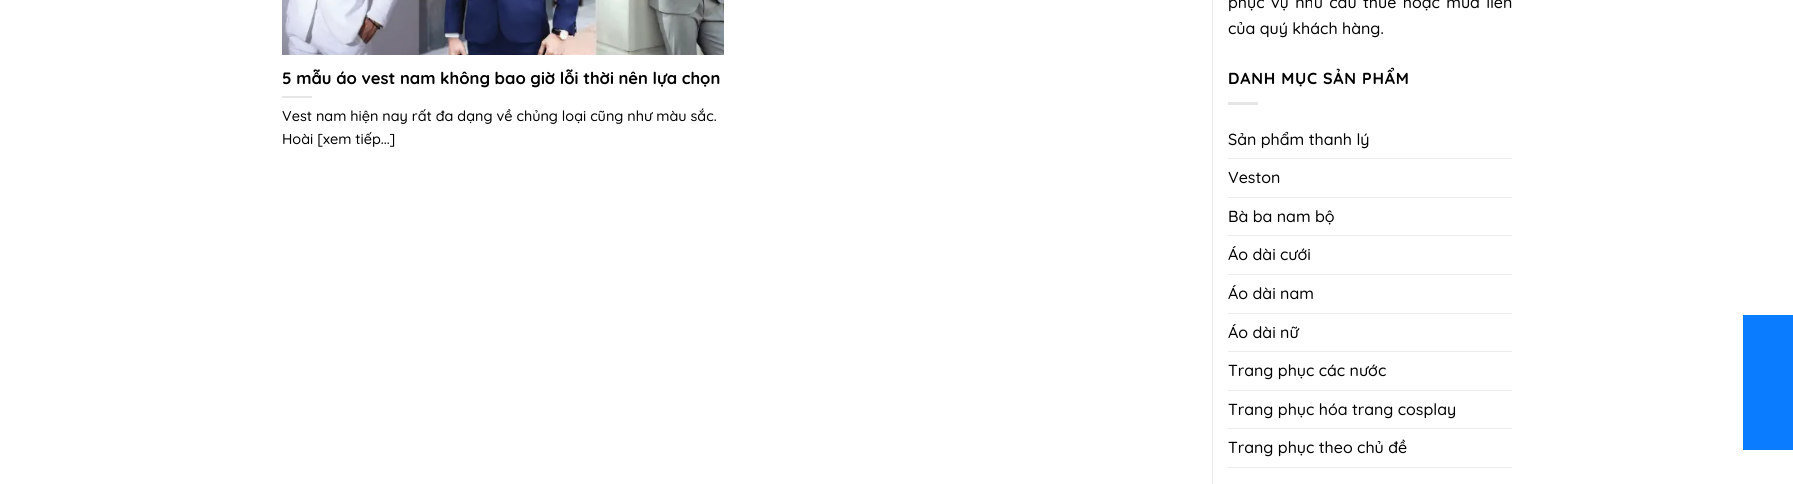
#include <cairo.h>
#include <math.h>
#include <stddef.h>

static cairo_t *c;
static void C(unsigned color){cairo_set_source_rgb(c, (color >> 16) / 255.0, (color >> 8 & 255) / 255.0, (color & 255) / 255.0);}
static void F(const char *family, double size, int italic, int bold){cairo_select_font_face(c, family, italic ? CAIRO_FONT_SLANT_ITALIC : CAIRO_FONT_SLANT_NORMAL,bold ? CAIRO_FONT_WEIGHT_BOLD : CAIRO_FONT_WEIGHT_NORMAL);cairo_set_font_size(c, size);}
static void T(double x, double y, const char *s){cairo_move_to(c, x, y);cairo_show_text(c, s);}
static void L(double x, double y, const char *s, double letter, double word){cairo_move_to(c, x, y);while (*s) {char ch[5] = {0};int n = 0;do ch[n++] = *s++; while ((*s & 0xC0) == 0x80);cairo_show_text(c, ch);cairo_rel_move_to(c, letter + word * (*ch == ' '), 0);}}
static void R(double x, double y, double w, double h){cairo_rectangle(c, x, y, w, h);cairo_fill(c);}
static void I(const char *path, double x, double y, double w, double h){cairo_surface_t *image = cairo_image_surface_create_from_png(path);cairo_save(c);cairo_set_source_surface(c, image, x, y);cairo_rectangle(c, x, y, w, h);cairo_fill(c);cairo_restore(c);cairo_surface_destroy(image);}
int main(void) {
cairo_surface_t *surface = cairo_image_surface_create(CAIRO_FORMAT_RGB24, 1793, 484);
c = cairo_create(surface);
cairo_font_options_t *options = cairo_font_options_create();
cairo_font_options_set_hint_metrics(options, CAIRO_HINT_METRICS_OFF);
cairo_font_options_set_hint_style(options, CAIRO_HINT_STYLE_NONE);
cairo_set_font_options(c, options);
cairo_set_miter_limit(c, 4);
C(0xffffff);
cairo_paint(c);
I("1.png",282,0,442,55);
F("Quicksand",16.55,0,1);
C(0x000000);
T(282,84,"5 mẫu áo vest nam không bao giờ lỗi thời nên lựa chọn");
C(0xe6e6e6);
R(282,96,30,2);
F("Quicksand Medium",14.4,0,0);
C(0x000000);
T(282,121,"Vest nam hiện nay rất đa dạng về chủng loại cũng như màu sắc.");
T(282,144,"Hoài [xem tiếp...]");
C(0xececec);
R(1212,0,1,484);
F("Quicksand Medium",16,0,0);
C(0x000000);
L(1228,8,"phục vụ nhu cầu thuê hoặc mua liền",0,2);
T(1228,34,"của quý khách hàng.");
F("Quicksand",16,0,1);
L(1228,84,"DANH MỤC SẢN PHẨM",.75,0);
C(0xe6e6e6);
R(1228,102,30,3);
F("Quicksand Medium",16,0,0);
C(0x000000);
T(1228,145,"Sản phẩm thanh lý");
C(0xececec);
R(1228,158,284,1);
C(0x000000);
T(1228,183,"Veston");
C(0xececec);
R(1228,197,284,1);
C(0x000000);
T(1228,222,"Bà ba nam bộ");
C(0xececec);
R(1228,235,284,1);
C(0x000000);
T(1228,260,"Áo dài cưới");
C(0xececec);
R(1228,274,284,1);
C(0x000000);
T(1228,299,"Áo dài nam");
C(0xececec);
R(1228,313,284,1);
C(0x000000);
T(1228,338,"Áo dài nữ");
C(0xececec);
R(1228,351,284,1);
C(0x000000);
T(1228,376,"Trang phục các nước");
C(0xececec);
R(1228,390,284,1);
C(0x000000);
T(1228,415,"Trang phục hóa trang cosplay");
C(0xececec);
R(1228,428,284,1);
C(0x000000);
T(1228,453,"Trang phục theo chủ đề");
C(0xececec);
R(1228,467,284,1);
C(0x0a7cff);
R(1743,315,50,135);
cairo_surface_write_to_png(surface, "o.png");
cairo_font_options_destroy(options);
cairo_destroy(c);
cairo_surface_destroy(surface);
return 0;
}
